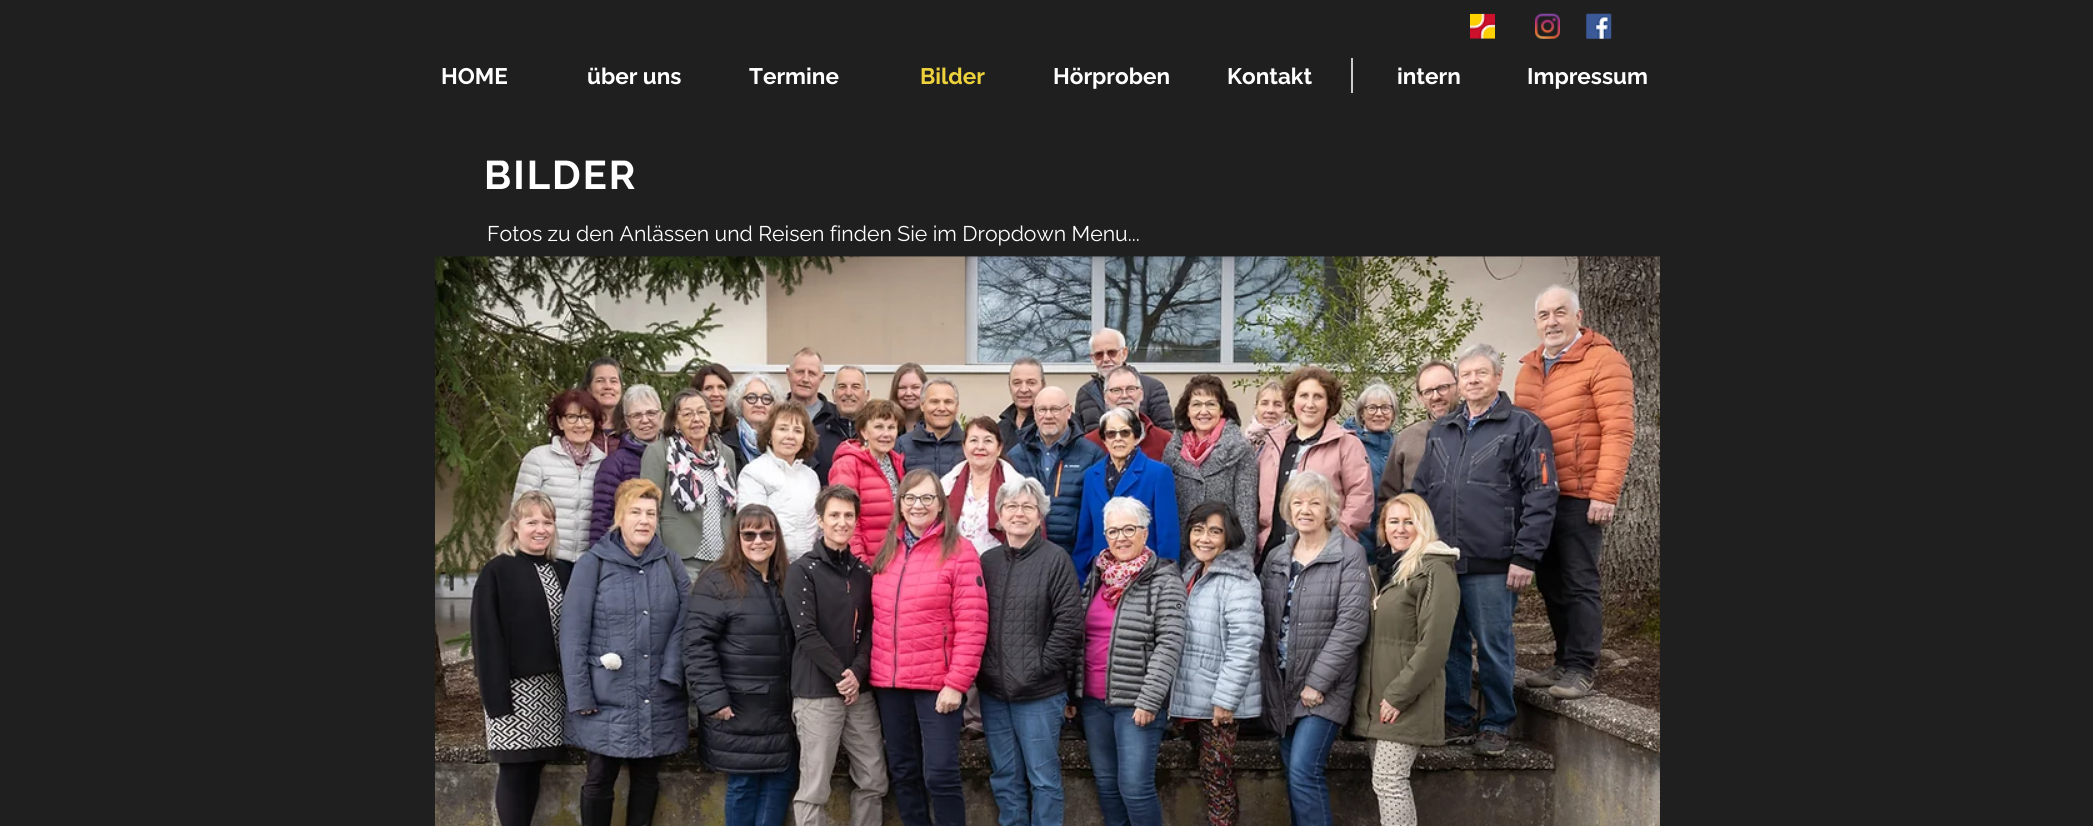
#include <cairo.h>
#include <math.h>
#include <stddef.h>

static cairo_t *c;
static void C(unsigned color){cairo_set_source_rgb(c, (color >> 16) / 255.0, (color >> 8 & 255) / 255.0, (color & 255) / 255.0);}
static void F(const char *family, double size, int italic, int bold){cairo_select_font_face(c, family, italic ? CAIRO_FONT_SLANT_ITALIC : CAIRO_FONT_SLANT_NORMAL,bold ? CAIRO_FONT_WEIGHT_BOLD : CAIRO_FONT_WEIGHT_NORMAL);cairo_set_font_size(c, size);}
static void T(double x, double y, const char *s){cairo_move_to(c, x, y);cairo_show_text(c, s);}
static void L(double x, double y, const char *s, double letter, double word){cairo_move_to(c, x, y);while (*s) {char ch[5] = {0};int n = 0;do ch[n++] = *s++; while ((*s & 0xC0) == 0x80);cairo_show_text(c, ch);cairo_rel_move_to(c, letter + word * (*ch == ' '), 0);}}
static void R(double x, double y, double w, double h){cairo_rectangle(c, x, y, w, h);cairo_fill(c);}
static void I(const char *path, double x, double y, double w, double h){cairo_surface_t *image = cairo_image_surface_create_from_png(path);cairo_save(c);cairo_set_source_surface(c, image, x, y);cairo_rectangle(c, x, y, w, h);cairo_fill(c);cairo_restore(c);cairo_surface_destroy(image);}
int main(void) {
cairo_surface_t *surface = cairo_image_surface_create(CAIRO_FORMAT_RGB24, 2093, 826);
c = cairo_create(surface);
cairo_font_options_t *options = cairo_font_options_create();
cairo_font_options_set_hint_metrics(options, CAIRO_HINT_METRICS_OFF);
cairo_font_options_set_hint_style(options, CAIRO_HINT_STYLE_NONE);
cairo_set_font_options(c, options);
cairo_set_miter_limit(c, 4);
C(0x1f1f1f);
cairo_paint(c);
I("1.png",1470,13,25,26);
I("2.png",1535,13,25,26);
I("3.png",1586,13,26,26);
C(0xcccccc);
R(1351,58,2,35);
F("Raleway",22.5,0,1);
C(0xffffff);
T(441,84,"HOME");
T(587,84,"über uns");
T(749,84,"Termine");
C(0xedd23b);
T(920,84,"Bilder");
C(0xffffff);
T(1053,84,"Hörproben");
T(1227,84,"Kontakt");
T(1397,84,"intern");
T(1527,84,"Impressum");
F("Raleway",40,0,1);
L(484,189,"BILDER",2,0);
F("Raleway",21.25,0,0);
T(487,241,"Fotos zu den Anlässen und Reisen finden Sie im Dropdown Menu...");
I("4.png",435,256,1225,570);
cairo_surface_write_to_png(surface, "o.png");
cairo_font_options_destroy(options);
cairo_destroy(c);
cairo_surface_destroy(surface);
return 0;
}
